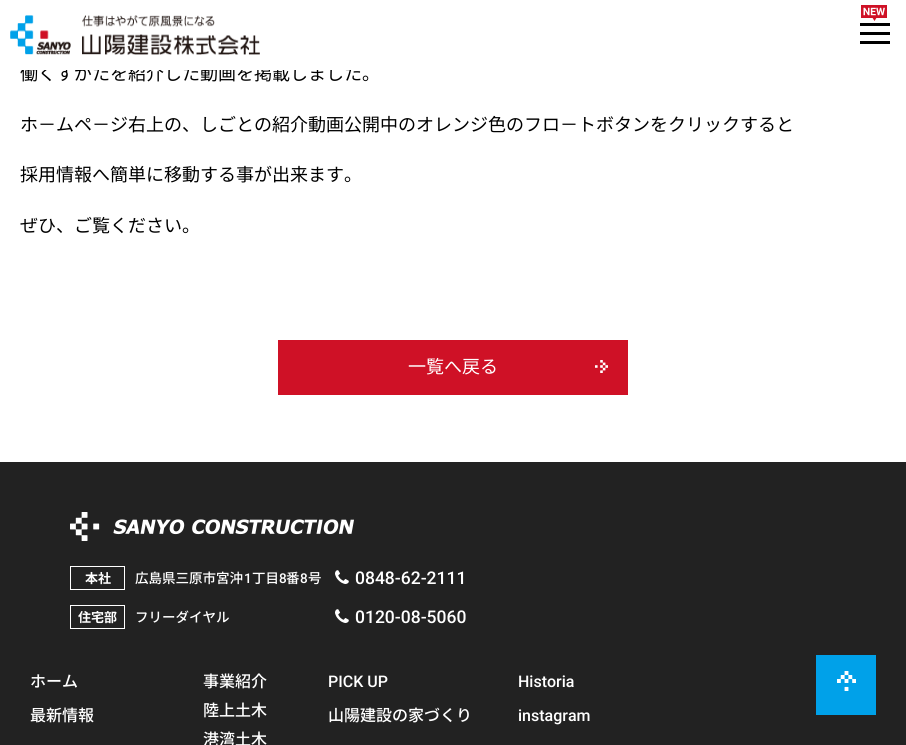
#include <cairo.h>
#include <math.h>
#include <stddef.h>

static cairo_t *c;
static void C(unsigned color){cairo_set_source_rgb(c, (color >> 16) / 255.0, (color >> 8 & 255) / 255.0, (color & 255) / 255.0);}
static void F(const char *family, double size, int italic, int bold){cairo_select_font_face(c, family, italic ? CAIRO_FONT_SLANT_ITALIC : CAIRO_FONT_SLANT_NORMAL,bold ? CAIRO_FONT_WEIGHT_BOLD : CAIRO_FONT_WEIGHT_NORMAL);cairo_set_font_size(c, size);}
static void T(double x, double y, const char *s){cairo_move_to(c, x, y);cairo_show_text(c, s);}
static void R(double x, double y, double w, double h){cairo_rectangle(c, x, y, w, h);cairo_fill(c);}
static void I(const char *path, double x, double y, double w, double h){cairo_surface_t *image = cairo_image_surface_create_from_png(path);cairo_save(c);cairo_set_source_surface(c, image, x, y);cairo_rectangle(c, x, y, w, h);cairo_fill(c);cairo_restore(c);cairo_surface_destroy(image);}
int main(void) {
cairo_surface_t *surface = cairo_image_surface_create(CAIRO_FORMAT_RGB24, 906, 745);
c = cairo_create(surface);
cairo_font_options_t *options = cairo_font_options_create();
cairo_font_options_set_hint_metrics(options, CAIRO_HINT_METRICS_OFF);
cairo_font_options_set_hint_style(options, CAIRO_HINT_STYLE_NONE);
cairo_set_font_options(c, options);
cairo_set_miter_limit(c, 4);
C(0xffffff);
cairo_paint(c);
F("Noto Sans JP",18,0,0);
C(0x000000);
T(20,80,"働くすがたを紹介した動画を掲載しました。");
C(0xffffff);
R(21,64,334,6);
I("1.png",10,15,250,40);
I("2.png",861,5,26,16);
C(0x000000);
R(860,23,30,3);
R(860,32,30,3);
R(860,41,30,3);
T(20,131,"ホ－ムペ－ジ右上の、しごとの紹介動画公開中のオレンジ色のフロ－トボタンをクリックすると");
T(20,181,"採用情報へ簡単に移動する事が出来ます。");
T(20,232,"ぜひ、ご覧ください。");
C(0xcf1126);
R(278,340,350,55);
C(0xffffff);
T(408,373,"一覧へ戻る");
I("3.png",595,360,13,13);
C(0x222222);
R(0,462,906,283);
I("4.png",70,512,284,29);
cairo_rectangle(c,70.5,566.5,54,23);
C(0xffffff);
cairo_set_line_width(c,1);
cairo_stroke(c);
F("Noto Sans JP",13,0,1);
T(85,583,"本社");
F("Noto Sans JP Medium",13.5,0,0);
T(135,583,"広島県三原市宮沖");
F("Roboto Medium",13.5,0,0);
T(244,583,"1");
F("Noto Sans JP Medium",13.5,0,0);
T(252,583,"丁目");
F("Roboto Medium",13.5,0,0);
T(279,583,"8");
F("Noto Sans JP Medium",13.5,0,0);
T(286,583,"番");
F("Roboto Medium",13.5,0,0);
T(300,583,"8");
F("Noto Sans JP Medium",13.5,0,0);
T(308,583,"号");
I("5.png",335,570,14,14);
F("Roboto Medium",17.5,0,0);
T(355,584,"0848-62-2111");
cairo_rectangle(c,70.5,605.5,54,23);
cairo_stroke(c);
F("Noto Sans JP",13,0,1);
T(78,622,"住宅部");
F("Noto Sans JP Medium",13.5,0,0);
T(135,622,"フリーダイヤル");
I("5.png",335,609,14,14);
F("Roboto Medium",17.5,0,0);
T(355,623,"0120-08-5060");
F("Noto Sans JP Medium",16,0,0);
T(30,687,"ホーム");
T(30,721,"最新情報");
T(203,687,"事業紹介");
T(203,716,"陸上土木");
T(203,745,"港湾土木");
F("Roboto Medium",16,0,0);
T(328,687,"PICK UP");
F("Noto Sans JP Medium",16,0,0);
T(328,721,"山陽建設の家づくり");
F("Roboto Medium",16,0,0);
T(518,687,"Historia");
T(518,721,"instagram");
C(0x00a1e9);
R(816,655,60,60);
I("6.png",837,671,19,20);
cairo_surface_write_to_png(surface, "o.png");
cairo_font_options_destroy(options);
cairo_destroy(c);
cairo_surface_destroy(surface);
return 0;
}
